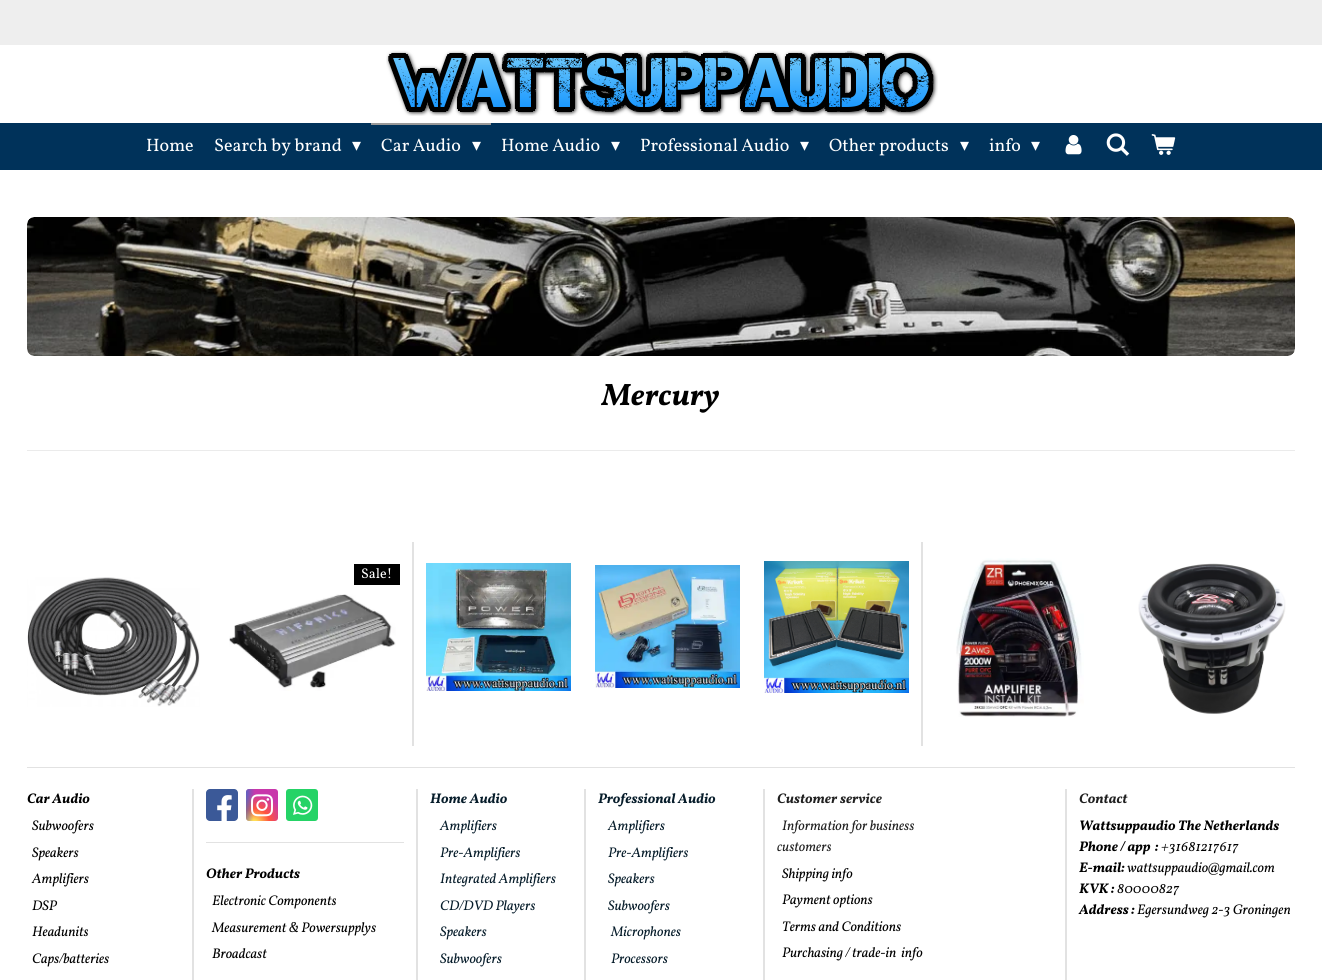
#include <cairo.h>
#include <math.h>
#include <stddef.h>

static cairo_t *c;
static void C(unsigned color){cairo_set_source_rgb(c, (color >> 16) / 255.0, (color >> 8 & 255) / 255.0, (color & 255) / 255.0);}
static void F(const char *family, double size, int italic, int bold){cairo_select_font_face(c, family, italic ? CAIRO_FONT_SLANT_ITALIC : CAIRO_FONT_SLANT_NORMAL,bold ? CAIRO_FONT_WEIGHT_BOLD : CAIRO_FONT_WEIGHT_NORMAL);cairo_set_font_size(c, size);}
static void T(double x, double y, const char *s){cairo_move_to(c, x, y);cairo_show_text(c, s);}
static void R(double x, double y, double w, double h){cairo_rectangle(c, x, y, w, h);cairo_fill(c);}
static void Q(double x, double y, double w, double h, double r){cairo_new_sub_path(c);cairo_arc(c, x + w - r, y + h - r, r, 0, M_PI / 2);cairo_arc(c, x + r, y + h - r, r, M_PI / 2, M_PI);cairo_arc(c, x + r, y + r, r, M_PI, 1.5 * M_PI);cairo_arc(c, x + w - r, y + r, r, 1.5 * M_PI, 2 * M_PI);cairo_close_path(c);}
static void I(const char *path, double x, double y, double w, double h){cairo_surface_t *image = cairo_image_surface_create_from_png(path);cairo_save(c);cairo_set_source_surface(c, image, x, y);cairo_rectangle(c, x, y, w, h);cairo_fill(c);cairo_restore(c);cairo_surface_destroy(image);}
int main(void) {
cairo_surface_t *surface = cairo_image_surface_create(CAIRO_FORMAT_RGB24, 1322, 980);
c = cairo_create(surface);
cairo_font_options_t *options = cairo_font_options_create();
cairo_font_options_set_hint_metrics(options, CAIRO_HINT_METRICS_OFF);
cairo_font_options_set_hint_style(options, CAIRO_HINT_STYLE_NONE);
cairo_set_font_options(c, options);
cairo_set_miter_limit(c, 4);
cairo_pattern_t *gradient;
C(0xffffff);
cairo_paint(c);
C(0xeeeeee);
R(0,0,1322,45);
I("1.png",386,50,552,66);
C(0x00325a);
R(0,123,1322,47);
F("Vollkorn",18,0,0);
C(0xffffff);
T(146,151,"Home");
T(214,151,"Search by brand");
F("DejaVu Sans",18,0,0);
T(352,151,"▾");
C(0x999999);
R(371,123,120,2);
F("Vollkorn",18,0,0);
C(0xffffff);
T(381,151,"Car Audio");
F("DejaVu Sans",18,0,0);
T(472,151,"▾");
F("Vollkorn",18,0,0);
T(501,151,"Home Audio");
F("DejaVu Sans",18,0,0);
T(611,151,"▾");
F("Vollkorn",18,0,0);
T(640,151,"Professional Audio");
F("DejaVu Sans",18,0,0);
T(800,151,"▾");
F("Vollkorn",18,0,0);
T(829,151,"Other products");
F("DejaVu Sans",18,0,0);
T(960,151,"▾");
F("Vollkorn",18,0,0);
T(989,151,"info");
F("DejaVu Sans",18,0,0);
T(1031,151,"▾");
I("2.png",1065,135,17,20);
I("3.png",1106,133,24,23);
I("4.png",1151,134,25,21);
I("5.png",27,217,1268,139);
F("Vollkorn",31,1,1);
C(0x000000);
T(602,405,"Mercury");
C(0xebebeb);
R(27,450,1268,1);
C(0xe2e2e2);
R(412,542,2,204);
C(0x000000);
R(354,564,46,21);
F("Vollkorn",14,0,0);
C(0xffffff);
T(361,578,"Sale!");
I("6.png",229,594,167,97);
I("7.png",27,577,173,130);
C(0xe2e2e2);
R(921,542,2,204);
I("8.png",426,563,145,128);
I("9.png",595,565,145,123);
I("10.png",764,561,145,132);
I("11.png",956,558,128,159);
I("12.png",1138,563,148,151);
R(27,767,1268,1);
R(192,789,2,191);
F("Vollkorn",14,1,1);
C(0x000000);
T(27,803,"Car Audio");
F("Vollkorn",14,1,0);
T(32,830,"Subwoofers");
T(32,857,"Speakers");
T(32,883,"Amplifiers");
T(32,910,"DSP");
T(32,936,"Headunits");
T(32,963,"Caps/batteries");
C(0xe2e2e2);
R(416,789,2,191);
C(0x3b5998);
Q(206,789,32,32,4);
cairo_fill(c);
I("13.png",217,795,15,26);
gradient = cairo_pattern_create_radial(0,0,0,0,0,1);
cairo_pattern_set_matrix(gradient, &(cairo_matrix_t){1.0 / 31, 0, 0, 1.0 / 29, -1.0 * 254 / 31, -1.0 * 823 / 29});
cairo_pattern_add_color_stop_rgba(gradient,0,1,0.867,0.333,1);
cairo_pattern_add_color_stop_rgba(gradient,.1,1,0.867,0.333,1);
cairo_pattern_add_color_stop_rgba(gradient,.5,1,0.329,0.243,1);
cairo_pattern_add_color_stop_rgba(gradient,1,0.784,0.216,0.671,1);
cairo_set_source(c,gradient);
cairo_pattern_destroy(gradient);
Q(246,789,32,32,3);
cairo_fill(c);
gradient = cairo_pattern_create_radial(0,0,0,0,0,1);
cairo_pattern_set_matrix(gradient, &(cairo_matrix_t){1.0 / 14, 0, 0, 1.0 / 58, -1.0 * 241 / 14, -1.0 * 791 / 58});
cairo_pattern_add_color_stop_rgba(gradient,0,0.216,0.443,0.784,1);
cairo_pattern_add_color_stop_rgba(gradient,.13,0.216,0.443,0.784,1);
cairo_pattern_add_color_stop_rgba(gradient,1,0.216,0.443,0.784,0);
cairo_set_source(c,gradient);
cairo_pattern_destroy(gradient);
Q(246,789,32,32,3);
cairo_fill(c);
I("14.png",251,794,22,23);
C(0x25d366);
Q(286,789,32,32,3);
cairo_fill(c);
I("15.png",293,795,20,20);
C(0xe2e2e2);
R(206,842,198,1);
F("Vollkorn",14,1,1);
C(0x000000);
T(206,878,"Other Products");
F("Vollkorn",14,1,0);
T(212,905,"Electronic Components");
T(212,932,"Measurement & Powersupplys");
T(212,958,"Broadcast");
C(0xe2e2e2);
R(584,789,2,191);
F("Vollkorn",14,1,1);
C(0x061c2a);
T(430,803,"Home Audio");
F("Vollkorn",14,1,0);
T(440,830,"Amplifiers");
T(440,857,"Pre-Amplifiers");
T(440,883,"Integrated Amplifiers");
T(440,910,"CD/DVD Players");
T(440,936,"Speakers");
T(440,963,"Subwoofers");
C(0xe2e2e2);
R(763,789,2,191);
F("Vollkorn",14,1,1);
C(0x061c2a);
T(598,803,"Professional Audio");
F("Vollkorn",14,1,0);
T(608,830,"Amplifiers");
T(608,857,"Pre-Amplifiers");
T(608,883,"Speakers");
T(608,910,"Subwoofers");
T(611,936,"Microphones");
T(611,963,"Processors");
F("Vollkorn",14,1,1);
C(0x202020);
T(777,803,"Customer service");
F("Vollkorn",14,1,0);
T(782,830,"Information for business");
T(777,851,"customers");
C(0x000000);
T(782,878,"Shipping info");
T(782,904,"Payment options");
T(782,931,"Terms and Conditions");
T(782,957,"Purchasing / trade-in  info");
C(0xe2e2e2);
R(1065,789,2,191);
F("Vollkorn",14,1,1);
C(0x202020);
T(1079,803,"Contact");
C(0x000000);
T(1079,830,"Wattsuppaudio The Netherlands");
T(1079,851,"Phone / app");
T(1155,851,":");
F("Vollkorn",14,1,0);
T(1161,851,"+31681217617");
F("Vollkorn",14,1,1);
T(1079,872,"E-mail:");
F("Vollkorn",14,1,0);
T(1127,872,"wattsuppaudio@gmail.com");
F("Vollkorn",14,1,1);
T(1079,893,"KVK :");
F("Vollkorn",14,1,0);
T(1117,893,"80000827");
F("Vollkorn",14,1,1);
T(1079,914,"Address :");
F("Vollkorn",14,1,0);
T(1137,914,"Egersundweg 2-3 Groningen");
cairo_surface_write_to_png(surface, "o.png");
cairo_font_options_destroy(options);
cairo_destroy(c);
cairo_surface_destroy(surface);
return 0;
}
